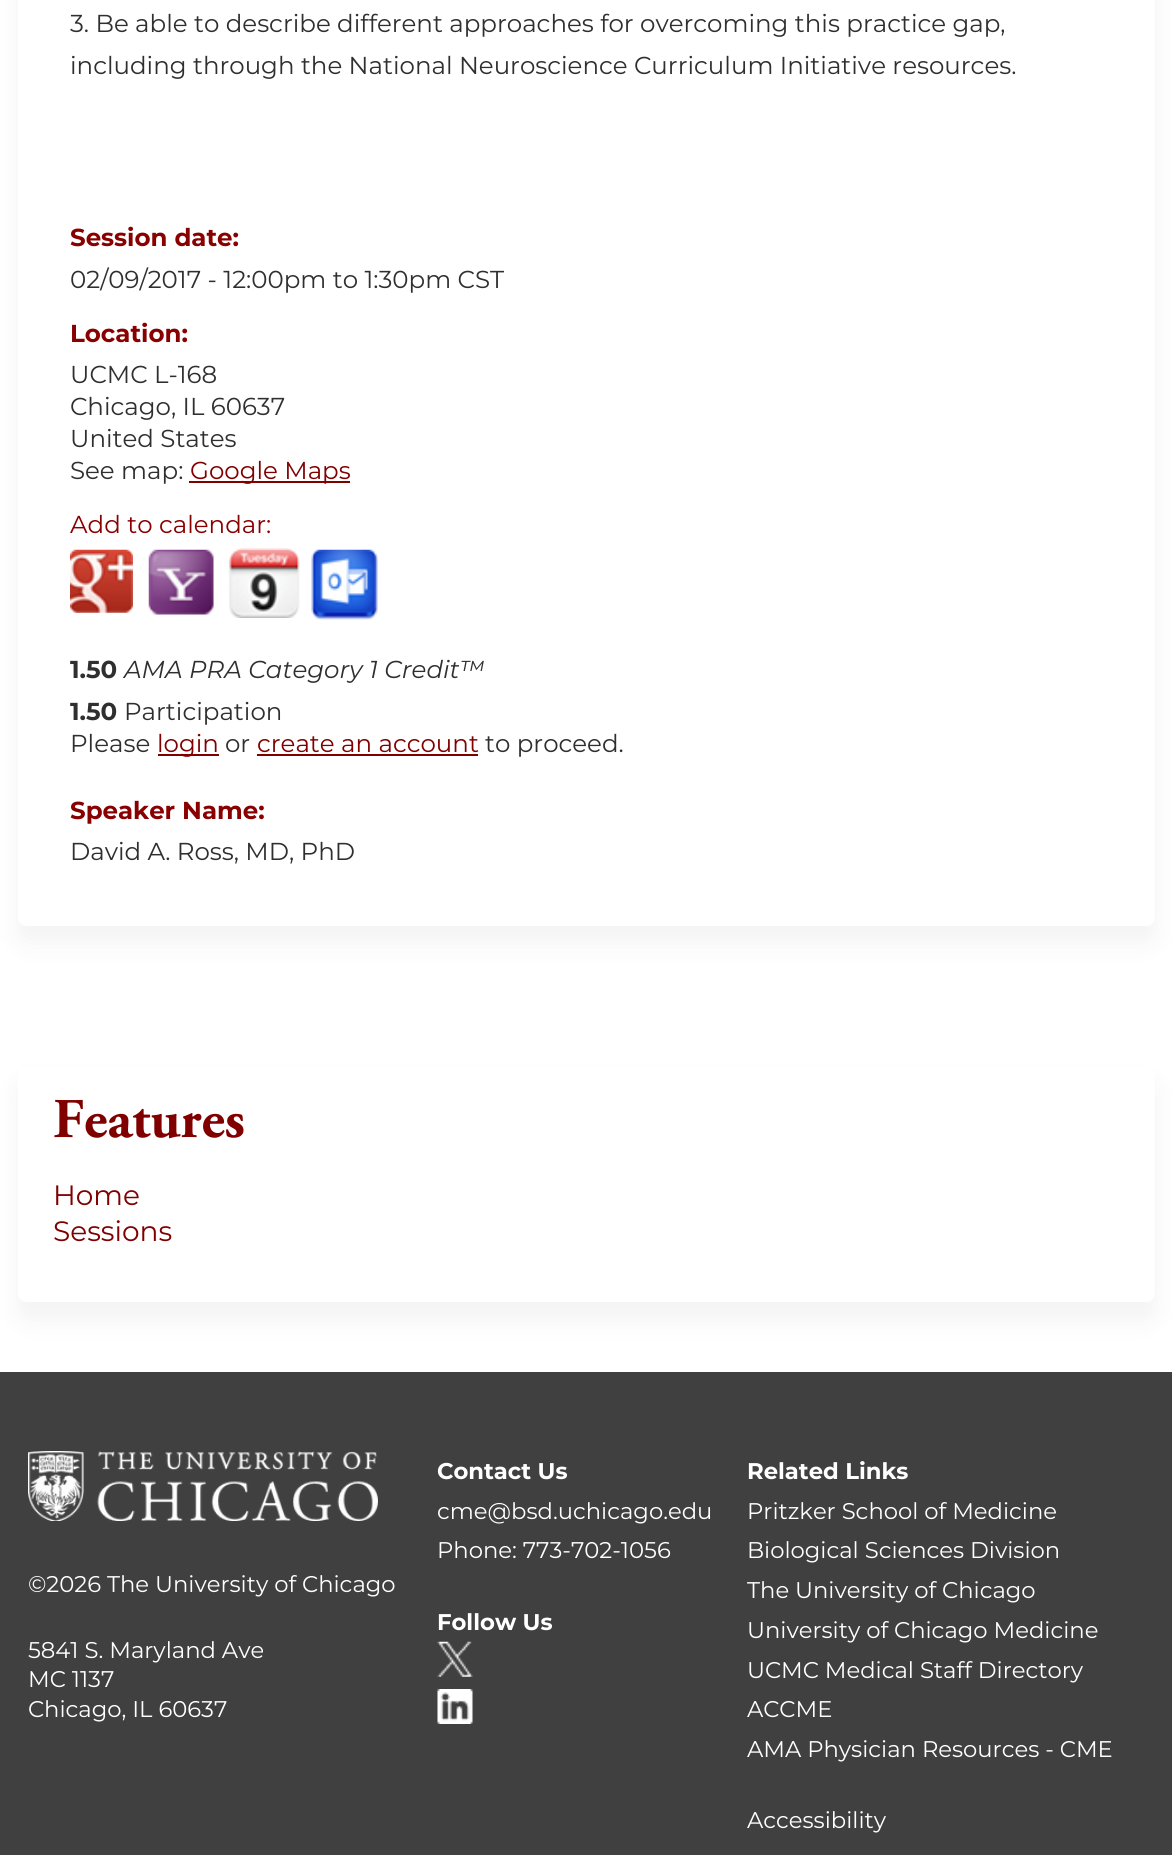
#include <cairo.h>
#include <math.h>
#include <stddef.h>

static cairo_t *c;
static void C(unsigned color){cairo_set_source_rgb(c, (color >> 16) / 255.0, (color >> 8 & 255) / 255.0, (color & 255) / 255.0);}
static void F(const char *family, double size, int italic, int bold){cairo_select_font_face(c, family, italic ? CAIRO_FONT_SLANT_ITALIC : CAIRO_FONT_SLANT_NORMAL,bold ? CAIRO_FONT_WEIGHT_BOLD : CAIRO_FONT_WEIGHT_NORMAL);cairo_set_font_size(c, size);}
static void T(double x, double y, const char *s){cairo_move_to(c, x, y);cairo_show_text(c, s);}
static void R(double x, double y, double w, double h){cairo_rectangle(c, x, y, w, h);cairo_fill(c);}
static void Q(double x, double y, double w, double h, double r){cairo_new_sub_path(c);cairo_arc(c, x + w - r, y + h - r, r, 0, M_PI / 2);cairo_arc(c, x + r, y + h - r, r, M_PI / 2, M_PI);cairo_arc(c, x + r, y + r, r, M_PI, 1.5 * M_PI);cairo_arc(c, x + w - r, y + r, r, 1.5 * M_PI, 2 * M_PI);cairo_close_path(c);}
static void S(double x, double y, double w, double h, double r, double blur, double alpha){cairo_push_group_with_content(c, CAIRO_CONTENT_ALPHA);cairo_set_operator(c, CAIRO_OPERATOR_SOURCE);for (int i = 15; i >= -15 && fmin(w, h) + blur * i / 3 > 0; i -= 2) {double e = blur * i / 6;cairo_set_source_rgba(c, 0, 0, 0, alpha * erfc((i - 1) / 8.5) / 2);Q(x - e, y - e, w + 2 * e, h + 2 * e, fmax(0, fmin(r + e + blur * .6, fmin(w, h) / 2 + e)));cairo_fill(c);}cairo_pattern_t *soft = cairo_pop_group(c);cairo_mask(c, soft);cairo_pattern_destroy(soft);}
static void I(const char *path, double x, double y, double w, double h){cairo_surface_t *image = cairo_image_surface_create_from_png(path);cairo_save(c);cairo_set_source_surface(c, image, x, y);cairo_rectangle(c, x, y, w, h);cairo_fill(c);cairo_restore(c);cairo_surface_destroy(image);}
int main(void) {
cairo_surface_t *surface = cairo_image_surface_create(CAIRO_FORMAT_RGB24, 1172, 1855);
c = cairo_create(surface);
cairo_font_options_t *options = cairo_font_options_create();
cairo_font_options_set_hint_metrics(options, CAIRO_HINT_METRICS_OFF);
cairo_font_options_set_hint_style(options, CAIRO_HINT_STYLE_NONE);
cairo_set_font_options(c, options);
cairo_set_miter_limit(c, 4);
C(0xffffff);
cairo_paint(c);
C(0x000000);
S(18,-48,1137,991,9,13,.05);
C(0xffffff);
Q(18,-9,1137,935,9);
cairo_fill(c);
F("Montserrat",24.5,0,0);
C(0x2f2f2f);
T(70,32,"3. Be able to describe different approaches for overcoming this practice gap,");
T(70,74,"including through the National Neuroscience Curriculum Initiative resources.");
F("Montserrat",24.5,0,1);
C(0x880000);
T(70,246,"Session date:");
F("Montserrat",24.5,0,0);
C(0x2f2f2f);
T(70,288,"02/09/2017 - 12:00pm to 1:30pm CST");
F("Montserrat",24.5,0,1);
C(0x880000);
T(70,342,"Location:");
F("Montserrat",24.5,0,0);
C(0x2f2f2f);
T(70,383,"UCMC L-168");
T(70,415,"Chicago, IL 60637");
T(70,447,"United States");
T(70,479,"See map:");
C(0x800000);
R(189,481,161,2);
T(190,479,"Google Maps");
C(0x880000);
T(70,533,"Add to calendar:");
I("1.png",70,549,63,64);
I("2.png",148,549,66,66);
I("3.png",228,548,72,70);
I("4.png",311,549,67,71);
F("Montserrat",24.5,0,1);
C(0x2f2f2f);
T(70,678,"1.50");
F("Montserrat",24.5,1,0);
T(124,678,"AMA PRA Category 1 Credit™");
F("Montserrat",24.5,0,1);
T(70,720,"1.50");
F("Montserrat",24.5,0,0);
T(124,720,"Participation");
T(70,752,"Please");
C(0x800000);
R(158,754,61,2);
T(157,752,"login");
C(0x2f2f2f);
T(225,752,"or");
C(0x800000);
T(257,752,"create an account");
R(257,754,221,2);
C(0x2f2f2f);
T(485,752,"to proceed.");
F("Montserrat",24.5,0,1);
C(0x880000);
T(70,819,"Speaker Name:");
F("Montserrat",24.5,0,0);
C(0x2f2f2f);
T(70,860,"David A. Ross, MD, PhD");
C(0x000000);
S(18,1083,1137,237,9,13,.05);
C(0xffffff);
Q(18,1066,1137,236,9);
cairo_fill(c);
F("Adobe Garamond",56,0,1);
C(0x800000);
T(53,1137,"Features");
F("Montserrat",28,0,0);
T(53,1205,"Home");
T(53,1241,"Sessions");
C(0x404040);
R(0,1372,1172,483);
F("Montserrat",22.7,0,1);
C(0xffffff);
T(437,1479,"Contact Us");
F("Montserrat",22.7,0,0);
T(437,1519,"cme@bsd.uchicago.edu");
T(437,1558,"Phone: 773-702-1056");
F("Montserrat",22.7,0,1);
T(437,1630,"Follow Us");
I("5.png",437,1641,36,36);
I("6.png",437,1689,36,35);
T(747,1479,"Related Links");
F("Montserrat",22.7,0,0);
T(747,1519,"Pritzker School of Medicine");
T(747,1558,"Biological Sciences Division");
T(747,1598,"The University of Chicago");
T(747,1638,"University of Chicago Medicine");
T(747,1678,"UCMC Medical Staff Directory");
T(747,1717,"ACCME");
T(747,1757,"AMA Physician Resources - CME");
T(747,1828,"Accessibility");
I("7.png",28,1451,350,70);
T(28,1592,"©2026 The University of Chicago");
T(28,1658,"5841 S. Maryland Ave");
T(28,1687,"MC 1137");
T(28,1717,"Chicago, IL 60637");
cairo_surface_write_to_png(surface, "o.png");
cairo_font_options_destroy(options);
cairo_destroy(c);
cairo_surface_destroy(surface);
return 0;
}
